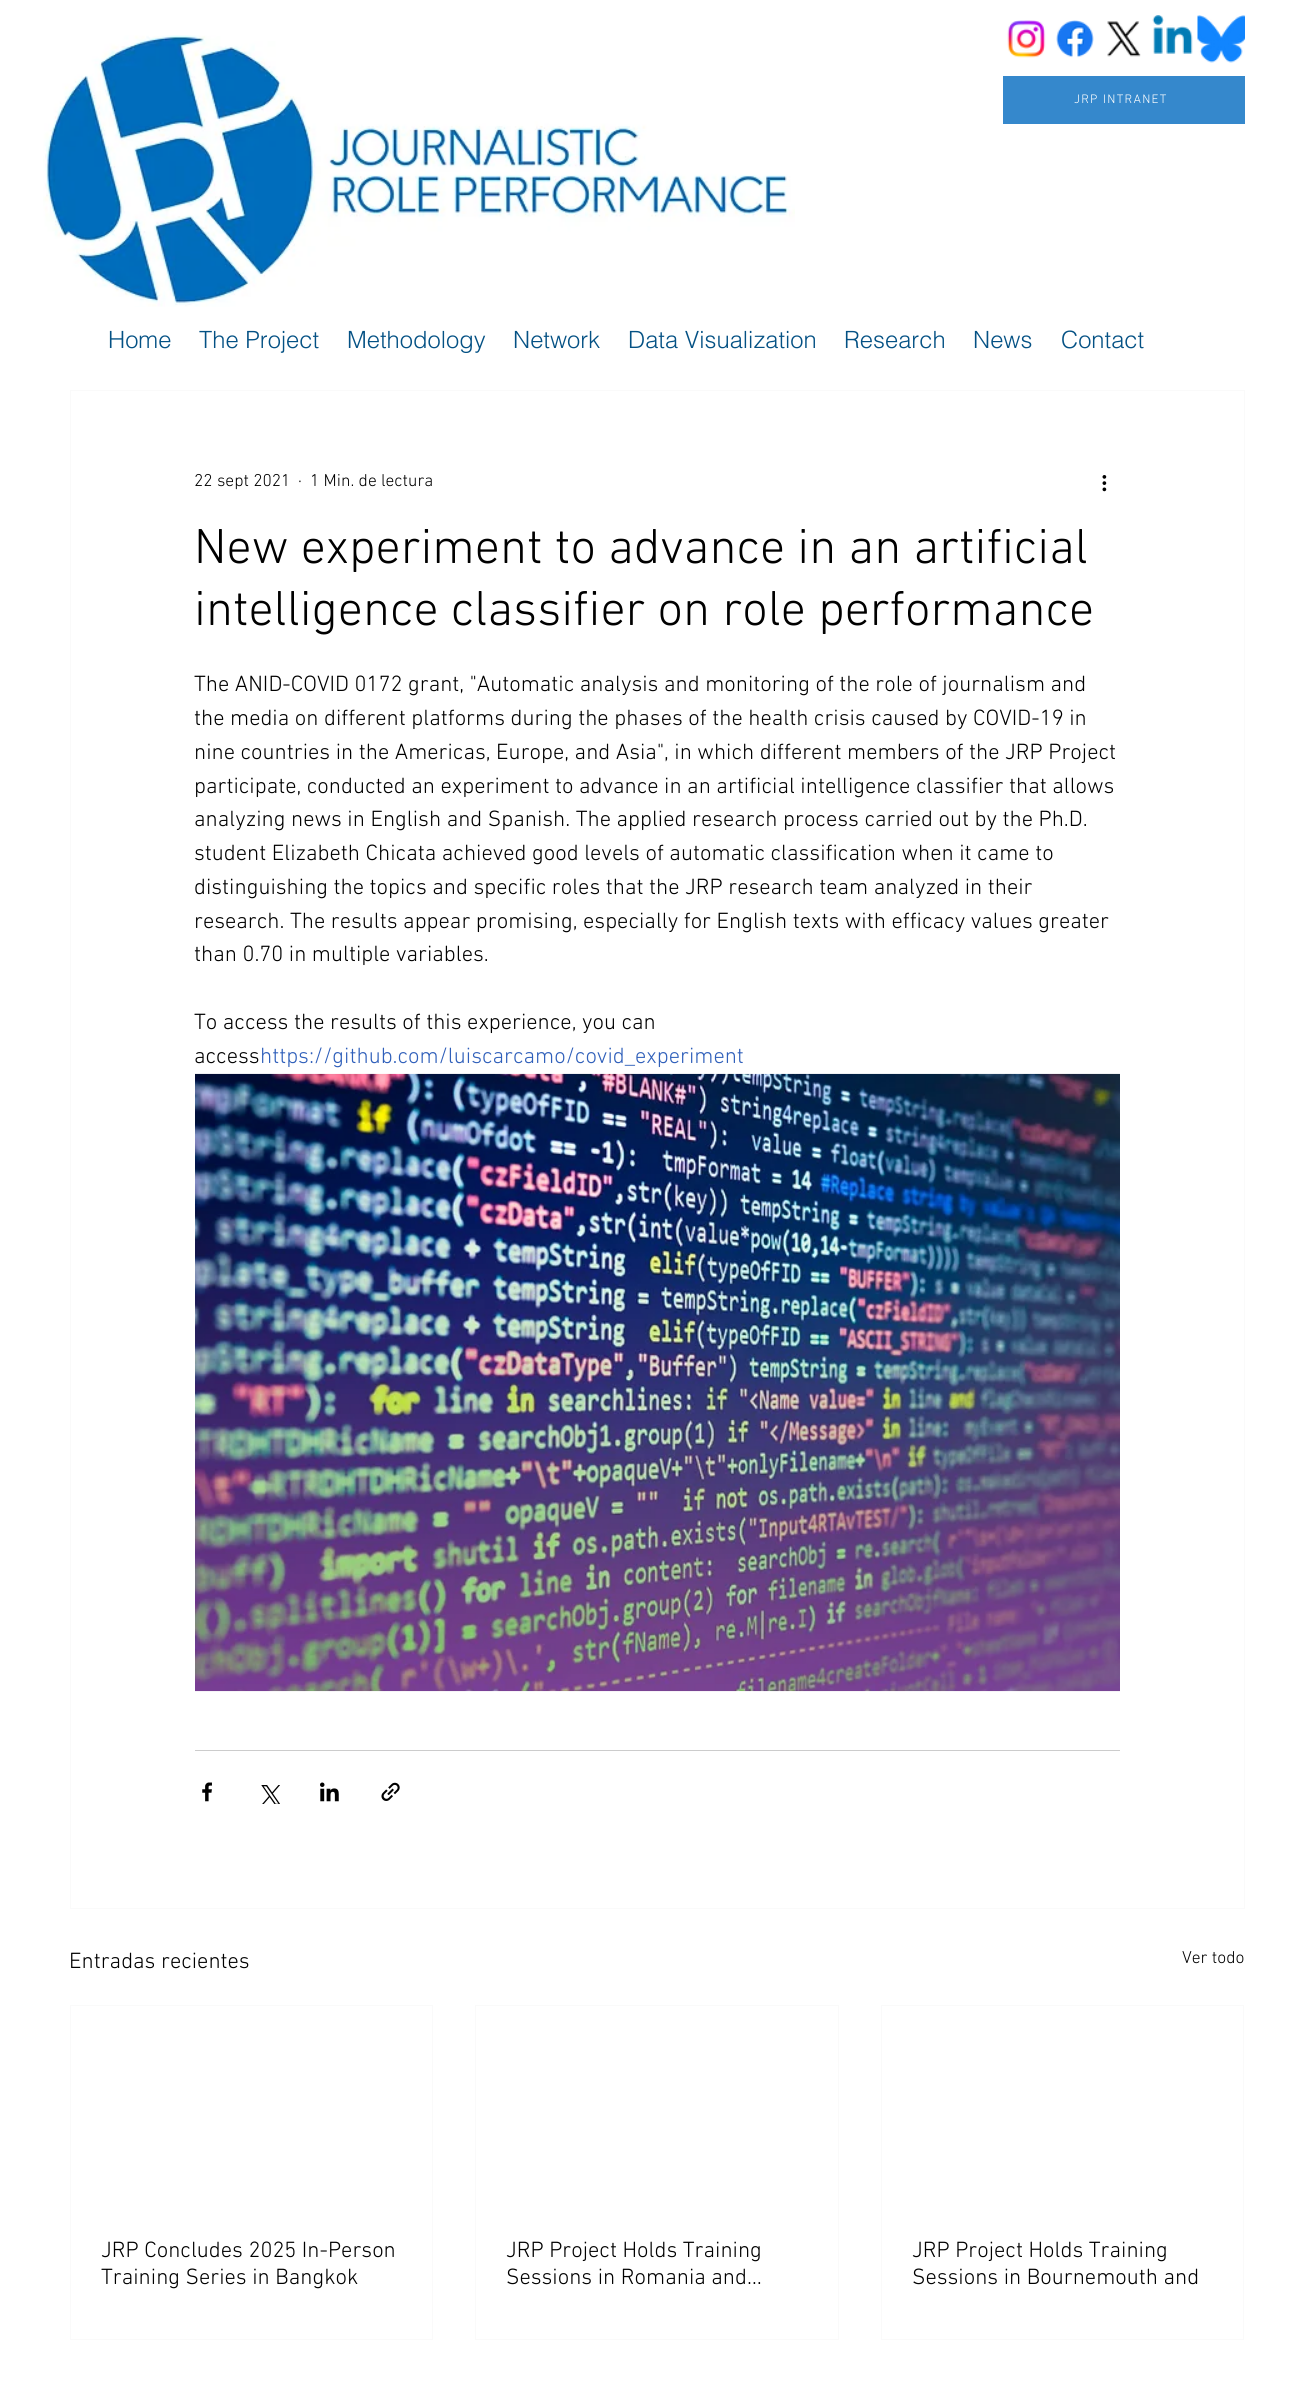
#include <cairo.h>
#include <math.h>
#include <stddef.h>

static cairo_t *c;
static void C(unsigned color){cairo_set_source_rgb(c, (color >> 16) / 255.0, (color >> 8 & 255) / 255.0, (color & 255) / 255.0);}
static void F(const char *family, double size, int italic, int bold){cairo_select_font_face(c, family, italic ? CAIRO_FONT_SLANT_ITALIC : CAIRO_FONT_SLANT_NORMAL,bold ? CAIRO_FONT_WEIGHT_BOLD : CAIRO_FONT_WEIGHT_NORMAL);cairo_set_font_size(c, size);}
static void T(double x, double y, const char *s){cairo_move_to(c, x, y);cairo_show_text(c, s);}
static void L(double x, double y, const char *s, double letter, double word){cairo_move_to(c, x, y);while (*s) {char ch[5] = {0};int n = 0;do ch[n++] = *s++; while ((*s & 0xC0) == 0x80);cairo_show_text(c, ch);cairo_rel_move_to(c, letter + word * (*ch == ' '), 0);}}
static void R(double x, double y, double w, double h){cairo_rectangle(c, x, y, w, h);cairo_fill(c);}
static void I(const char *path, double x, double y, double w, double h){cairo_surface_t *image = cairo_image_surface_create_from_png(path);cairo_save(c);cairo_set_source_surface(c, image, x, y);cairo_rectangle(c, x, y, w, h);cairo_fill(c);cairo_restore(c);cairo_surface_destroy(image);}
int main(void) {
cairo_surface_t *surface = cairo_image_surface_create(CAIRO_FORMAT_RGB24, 1293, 2387);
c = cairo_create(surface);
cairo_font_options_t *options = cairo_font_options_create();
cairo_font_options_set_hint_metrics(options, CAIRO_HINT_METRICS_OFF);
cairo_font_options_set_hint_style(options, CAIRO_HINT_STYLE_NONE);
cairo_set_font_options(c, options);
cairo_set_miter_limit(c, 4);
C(0xffffff);
cairo_paint(c);
I("1.png",43,35,752,272);
I("2.png",1007,20,39,38);
I("3.png",1056,20,38,38);
I("4.png",1107,21,34,36);
I("5.png",1152,15,41,39);
I("6.png",1197,15,48,48);
C(0x3588cc);
R(1003,76,242,48);
F("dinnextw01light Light",12.5,0,0);
C(0xffffff);
L(1074,103,"JRP INTRANET",1.25,0);
F("helvetica Light",23.75,0,0);
C(0x045184);
T(108,348,"Home");
T(199,348,"The Project");
T(347,348,"Methodology");
T(513,348,"Network");
T(628,348,"Data Visualization");
T(844,348,"Research");
T(973,348,"News");
T(1061,348,"Contact");
cairo_rectangle(c,70.5,390.5,1174,1518);
C(0xfafafa);
cairo_set_line_width(c,1);
cairo_stroke(c);
F("dinnextw01light Light",17.5,0,0);
C(0x000000);
T(194,486,"22 sept 2021");
T(298,486,"·");
T(310,486,"1 Min. de lectura");
I("7.png",1102,475,5,17);
F("dinnextw01light Light",50,0,0);
T(194,563,"New experiment to advance in an artificial");
T(194,625,"intelligence classifier on role performance");
F("dinnextw01light Light",22.5,0,0);
T(194,691,"The ANID-COVID 0172 grant, \"Automatic analysis and monitoring of the role of journalism and");
T(194,725,"the media on different platforms during the phases of the health crisis caused by COVID-19 in");
T(194,759,"nine countries in the Americas, Europe, and Asia\", in which different members of the JRP Project");
T(194,793,"participate, conducted an experiment to advance in an artificial intelligence classifier that allows");
T(194,826,"analyzing news in English and Spanish. The applied research process carried out by the Ph.D.");
T(194,860,"student Elizabeth Chicata achieved good levels of automatic classification when it came to");
T(194,894,"distinguishing the topics and specific roles that the JRP research team analyzed in their");
T(194,928,"research. The results appear promising, especially for English texts with efficacy values greater");
T(194,961,"than 0.70 in multiple variables.");
T(194,1029,"To access the results of this experience, you can");
T(194,1063,"access");
C(0x2f5fba);
T(260,1063,"https://github.com/luiscarcamo/covid_experiment");
I("8.png",195,1073,925,619);
C(0xcccccc);
R(195,1750,925,1);
I("9.png",202,1782,10,20);
I("10.png",261,1785,19,19);
I("11.png",320,1782,19,20);
I("12.png",381,1782,19,19);
C(0x000000);
T(69,1968,"Entradas recientes");
F("dinnextw01light Light",17.5,0,0);
T(1182,1963,"Ver todo");
cairo_rectangle(c,70.5,2005.5,362,334);
C(0xfafafa);
cairo_stroke(c);
F("dinnextw01light Light",22.5,0,0);
C(0x000000);
T(101,2257,"JRP Concludes 2025 In-Person");
T(101,2284,"Training Series in Bangkok");
cairo_rectangle(c,475.5,2005.5,363,334);
C(0xfafafa);
cairo_stroke(c);
C(0x000000);
T(506,2257,"JRP Project Holds Training");
T(506,2284,"Sessions in Romania and…");
cairo_rectangle(c,881.5,2005.5,362,334);
C(0xfafafa);
cairo_stroke(c);
C(0x000000);
T(912,2257,"JRP Project Holds Training");
T(912,2284,"Sessions in Bournemouth and");
cairo_surface_write_to_png(surface, "o.png");
cairo_font_options_destroy(options);
cairo_destroy(c);
cairo_surface_destroy(surface);
return 0;
}
